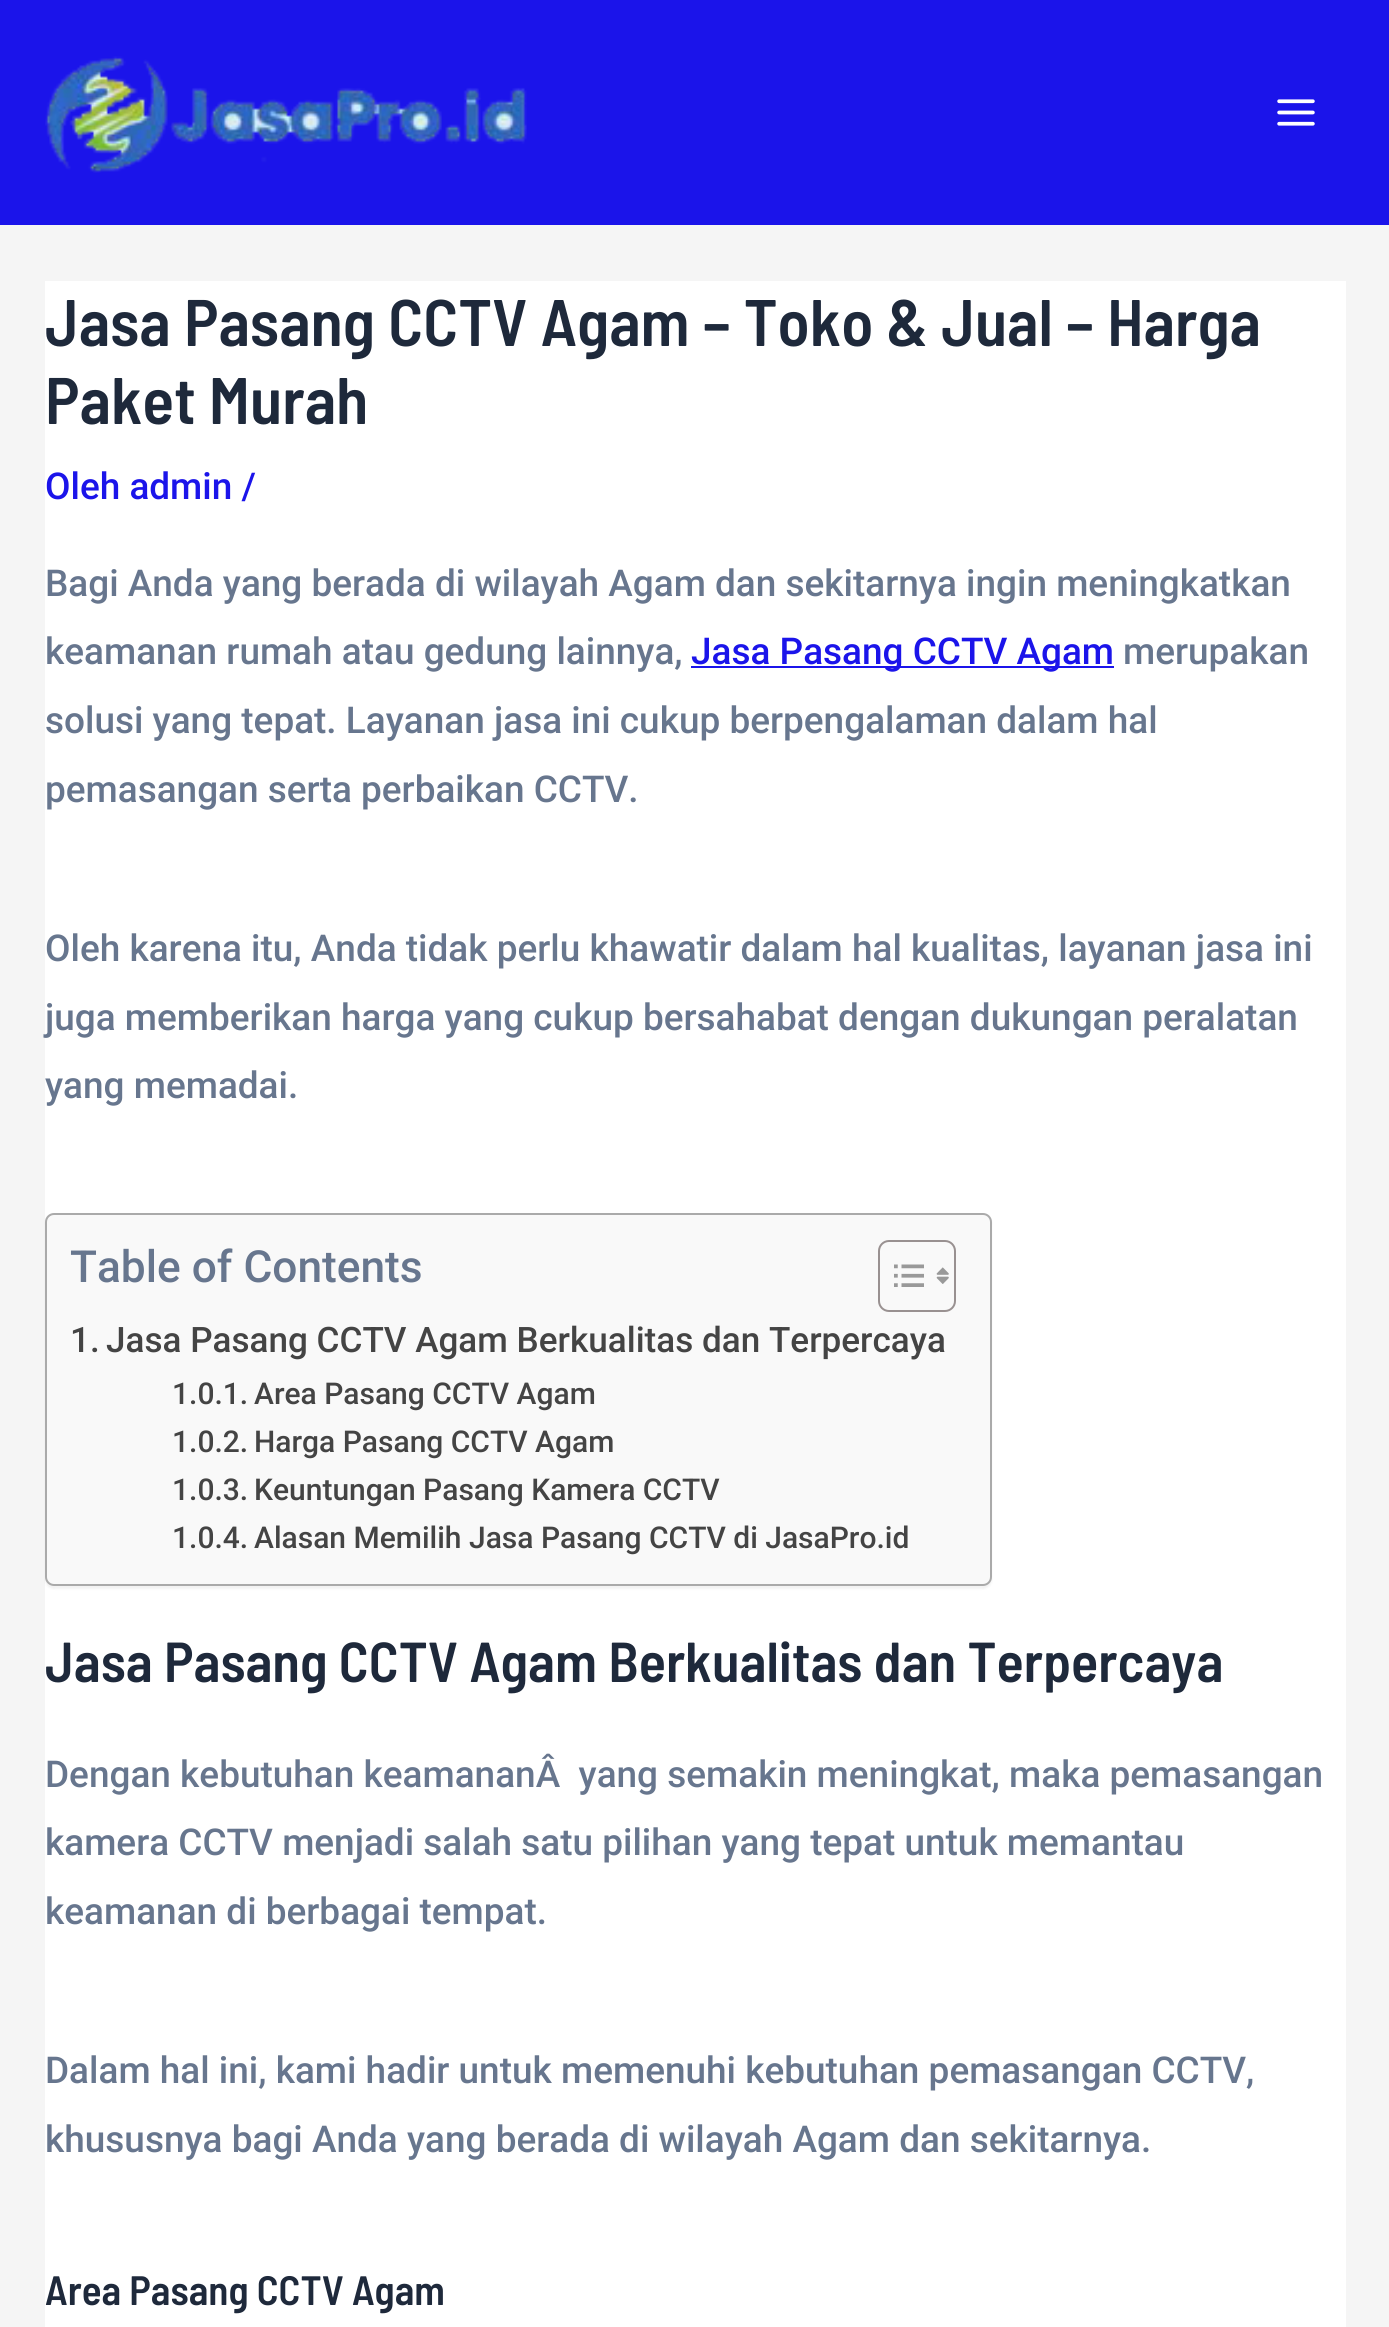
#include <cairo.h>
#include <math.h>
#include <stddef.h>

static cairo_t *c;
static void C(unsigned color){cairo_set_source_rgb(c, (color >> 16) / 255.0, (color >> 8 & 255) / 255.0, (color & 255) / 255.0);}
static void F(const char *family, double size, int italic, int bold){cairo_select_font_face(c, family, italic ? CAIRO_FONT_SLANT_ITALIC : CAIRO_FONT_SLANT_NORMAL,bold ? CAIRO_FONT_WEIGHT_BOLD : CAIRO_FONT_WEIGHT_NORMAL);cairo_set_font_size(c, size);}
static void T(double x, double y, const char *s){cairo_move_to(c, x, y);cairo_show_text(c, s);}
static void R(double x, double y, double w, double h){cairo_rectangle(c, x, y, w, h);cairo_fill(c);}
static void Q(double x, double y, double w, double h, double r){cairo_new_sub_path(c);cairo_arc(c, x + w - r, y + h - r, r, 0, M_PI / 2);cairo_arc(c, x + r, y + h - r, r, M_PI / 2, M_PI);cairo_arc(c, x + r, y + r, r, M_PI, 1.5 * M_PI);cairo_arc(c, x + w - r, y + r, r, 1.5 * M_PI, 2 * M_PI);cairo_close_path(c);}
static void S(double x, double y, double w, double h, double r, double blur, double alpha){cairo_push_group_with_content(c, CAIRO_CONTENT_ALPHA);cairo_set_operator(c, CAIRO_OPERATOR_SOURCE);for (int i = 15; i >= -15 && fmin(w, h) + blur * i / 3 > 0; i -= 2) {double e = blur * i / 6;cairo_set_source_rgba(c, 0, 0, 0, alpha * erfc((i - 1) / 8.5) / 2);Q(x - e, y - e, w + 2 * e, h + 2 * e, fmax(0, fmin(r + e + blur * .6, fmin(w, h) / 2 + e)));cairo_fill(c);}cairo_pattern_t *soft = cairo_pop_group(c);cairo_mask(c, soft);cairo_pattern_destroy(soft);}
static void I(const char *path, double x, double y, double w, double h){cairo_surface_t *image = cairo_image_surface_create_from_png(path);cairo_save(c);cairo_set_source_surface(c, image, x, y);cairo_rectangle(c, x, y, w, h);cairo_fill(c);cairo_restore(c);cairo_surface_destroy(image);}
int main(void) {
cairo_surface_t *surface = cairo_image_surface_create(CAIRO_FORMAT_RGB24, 1389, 2327);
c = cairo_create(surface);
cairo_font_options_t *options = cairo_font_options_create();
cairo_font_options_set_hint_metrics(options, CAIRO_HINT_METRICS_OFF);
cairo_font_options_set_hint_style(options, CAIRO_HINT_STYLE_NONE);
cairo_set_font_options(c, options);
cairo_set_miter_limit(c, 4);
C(0xf5f5f5);
cairo_paint(c);
C(0x1b14ea);
R(0,0,1389,225);
I("1.png",45,56,482,117);
I("2.png",1277,99,38,27);
C(0xffffff);
R(45,281,1301,2046);
F("Barlow Semi Condensed SemiBold",65.7,0,0);
C(0x1e293b);
T(45,346,"Jasa Pasang CCTV Agam – Toko & Jual – Harga");
T(45,424,"Paket Murah");
F("Roboto Medium",36.95,0,0);
C(0x1b14ea);
T(45,499,"Oleh admin /");
C(0x67768e);
T(45,596,"Bagi Anda yang berada di wilayah Agam dan sekitarnya ingin meningkatkan");
T(45,664,"keamanan rumah atau gedung lainnya,");
C(0x1b14ea);
R(691,666,423,2);
T(691,664,"Jasa Pasang CCTV Agam");
C(0x67768e);
T(1123,664,"merupakan");
T(45,733,"solusi yang tepat. Layanan jasa ini cukup berpengalaman dalam hal");
T(45,802,"pemasangan serta perbaikan CCTV.");
T(45,961,"Oleh karena itu, Anda tidak perlu khawatir dalam hal kualitas, layanan jasa ini");
T(45,1030,"juga memberikan harga yang cukup bersahabat dengan dukungan peralatan");
T(45,1098,"yang memadai.");
C(0x000000);
S(45,1215,947,374,9,1,.05);
C(0xf9f9f9);
Q(46,1214,945,371,8);
cairo_fill_preserve(c);
C(0xaaaaaa);
cairo_stroke(c);
F("Roboto Medium",44.25,0,0);
C(0x67768e);
T(70,1282,"Table of Contents");
Q(879,1241,76,70,10);
C(0x999191);
cairo_stroke(c);
I("3.png",894,1264,30,23);
I("4.png",936,1267,13,17);
F("Roboto Medium",35.1,0,0);
C(0x444444);
T(70,1352,"1.");
T(106,1352,"Jasa Pasang CCTV Agam Berkualitas dan Terpercaya");
F("Roboto Medium",30,0,0);
T(172,1404,"1.0.1.");
T(254,1404,"Area Pasang CCTV Agam");
T(172,1452,"1.0.2.");
T(254,1452,"Harga Pasang CCTV Agam");
T(172,1500,"1.0.3.");
T(254,1500,"Keuntungan Pasang Kamera CCTV");
T(172,1548,"1.0.4.");
T(254,1548,"Alasan Memilih Jasa Pasang CCTV di JasaPro.id");
F("Barlow Semi Condensed SemiBold",56.25,0,0);
C(0x1e293b);
T(45,1682,"Jasa Pasang CCTV Agam Berkualitas dan Terpercaya");
F("Roboto Medium",36.95,0,0);
C(0x67768e);
T(45,1787,"Dengan kebutuhan keamananÂ  yang semakin meningkat, maka pemasangan");
T(45,1855,"kamera CCTV menjadi salah satu pilihan yang tepat untuk memantau");
T(45,1924,"keamanan di berbagai tempat.");
T(45,2083,"Dalam hal ini, kami hadir untuk memenuhi kebutuhan pemasangan CCTV,");
T(45,2152,"khususnya bagi Anda yang berada di wilayah Agam dan sekitarnya.");
F("Barlow Semi Condensed SemiBold",41,0,0);
C(0x1e293b);
T(45,2305,"Area Pasang CCTV Agam");
cairo_surface_write_to_png(surface, "o.png");
cairo_font_options_destroy(options);
cairo_destroy(c);
cairo_surface_destroy(surface);
return 0;
}
